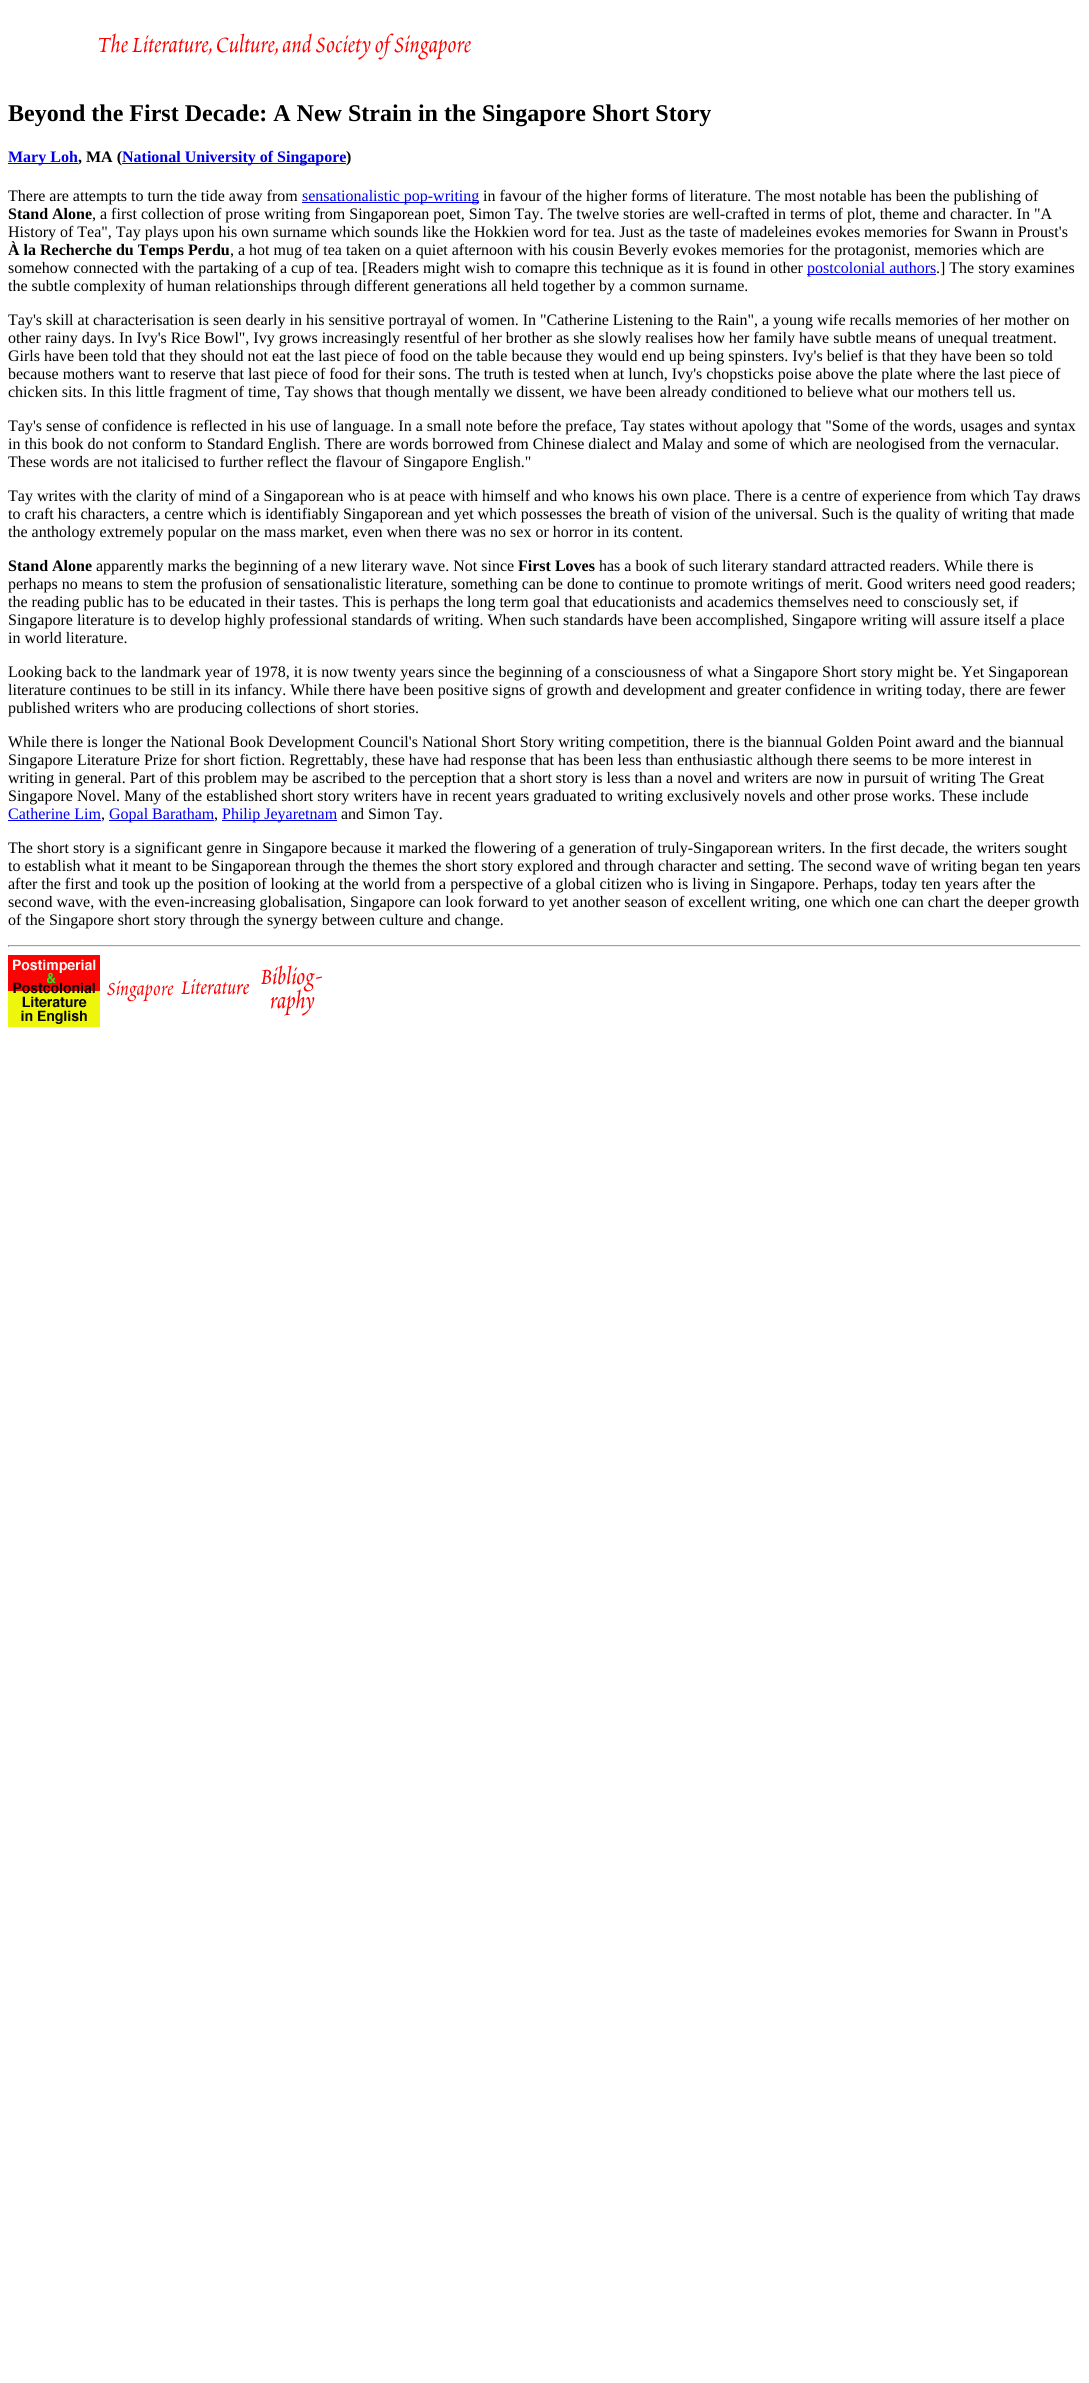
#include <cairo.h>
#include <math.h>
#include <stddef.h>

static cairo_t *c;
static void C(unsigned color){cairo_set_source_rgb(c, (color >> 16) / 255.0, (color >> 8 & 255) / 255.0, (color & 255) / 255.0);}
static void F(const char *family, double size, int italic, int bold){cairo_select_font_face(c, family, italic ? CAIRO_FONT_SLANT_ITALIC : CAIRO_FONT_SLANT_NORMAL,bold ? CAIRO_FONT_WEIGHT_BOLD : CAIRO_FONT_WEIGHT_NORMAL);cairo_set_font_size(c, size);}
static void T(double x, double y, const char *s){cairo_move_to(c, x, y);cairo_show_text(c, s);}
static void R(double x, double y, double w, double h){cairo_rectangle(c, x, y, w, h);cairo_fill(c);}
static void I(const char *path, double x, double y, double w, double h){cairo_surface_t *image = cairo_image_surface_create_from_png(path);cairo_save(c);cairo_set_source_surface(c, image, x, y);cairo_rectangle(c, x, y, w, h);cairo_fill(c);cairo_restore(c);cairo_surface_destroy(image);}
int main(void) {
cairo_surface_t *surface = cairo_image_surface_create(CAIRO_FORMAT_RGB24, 1089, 2383);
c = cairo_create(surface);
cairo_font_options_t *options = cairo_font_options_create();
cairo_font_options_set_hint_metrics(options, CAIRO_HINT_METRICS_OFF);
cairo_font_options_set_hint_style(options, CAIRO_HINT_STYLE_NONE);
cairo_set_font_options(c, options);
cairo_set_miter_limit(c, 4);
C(0xffffff);
cairo_paint(c);
I("1.png",98,33,373,27);
F("Liberation Serif",24,0,1);
C(0x000000);
T(8,121,"Beyond the First Decade: A New Strain in the Singapore Short Story");
C(0x0000ee);
R(8,163,70,1);
F("Liberation Serif",16,0,1);
T(8,162,"Mary Loh");
C(0x000000);
T(78,162,", MA (");
C(0x0000ee);
R(122,163,224,1);
T(122,162,"National University of Singapore");
C(0x000000);
T(346,162,")");
F("Liberation Serif",16,0,0);
T(8,201,"There are attempts to turn the tide away from");
C(0x0000ee);
R(302,202,177,1);
T(302,201,"sensationalistic pop-writing");
C(0x000000);
T(483,201,"in favour of the higher forms of literature. The most notable has been the publishing of");
F("Liberation Serif",16,0,1);
T(8,219,"Stand Alone");
F("Liberation Serif",16,0,0);
T(92,219,", a first collection of prose writing from Singaporean poet, Simon Tay. The twelve stories are well-crafted in terms of plot, theme and character. In \"A");
T(8,237,"History of Tea\", Tay plays upon his own surname which sounds like the Hokkien word for tea. Just as the taste of madeleines evokes memories for Swann in Proust's");
F("Liberation Serif",16,0,1);
T(8,255,"À la Recherche du Temps Perdu");
F("Liberation Serif",16,0,0);
T(230,255,", a hot mug of tea taken on a quiet afternoon with his cousin Beverly evokes memories for the protagonist, memories which are");
T(8,273,"somehow connected with the partaking of a cup of tea. [Readers might wish to comapre this technique as it is found in other");
C(0x0000ee);
R(807,274,129,1);
T(807,273,"postcolonial authors");
C(0x000000);
T(936,273,".] The story examines");
T(8,291,"the subtle complexity of human relationships through different generations all held together by a common surname.");
T(8,325,"Tay's skill at characterisation is seen dearly in his sensitive portrayal of women. In \"Catherine Listening to the Rain\", a young wife recalls memories of her mother on");
T(8,343,"other rainy days. In Ivy's Rice Bowl\", Ivy grows increasingly resentful of her brother as she slowly realises how her family have subtle means of unequal treatment.");
T(8,361,"Girls have been told that they should not eat the last piece of food on the table because they would end up being spinsters. Ivy's belief is that they have been so told");
T(8,379,"because mothers want to reserve that last piece of food for their sons. The truth is tested when at lunch, Ivy's chopsticks poise above the plate where the last piece of");
T(8,397,"chicken sits. In this little fragment of time, Tay shows that though mentally we dissent, we have been already conditioned to believe what our mothers tell us.");
T(8,431,"Tay's sense of confidence is reflected in his use of language. In a small note before the preface, Tay states without apology that \"Some of the words, usages and syntax");
T(8,449,"in this book do not conform to Standard English. There are words borrowed from Chinese dialect and Malay and some of which are neologised from the vernacular.");
T(8,467,"These words are not italicised to further reflect the flavour of Singapore English.\"");
T(8,501,"Tay writes with the clarity of mind of a Singaporean who is at peace with himself and who knows his own place. There is a centre of experience from which Tay draws");
T(8,519,"to craft his characters, a centre which is identifiably Singaporean and yet which possesses the breath of vision of the universal. Such is the quality of writing that made");
T(8,537,"the anthology extremely popular on the mass market, even when there was no sex or horror in its content.");
F("Liberation Serif",16,0,1);
T(8,571,"Stand Alone");
F("Liberation Serif",16,0,0);
T(96,571,"apparently marks the beginning of a new literary wave. Not since");
F("Liberation Serif",16,0,1);
T(518,571,"First Loves");
F("Liberation Serif",16,0,0);
T(599,571,"has a book of such literary standard attracted readers. While there is");
T(8,589,"perhaps no means to stem the profusion of sensationalistic literature, something can be done to continue to promote writings of merit. Good writers need good readers;");
T(8,607,"the reading public has to be educated in their tastes. This is perhaps the long term goal that educationists and academics themselves need to consciously set, if");
T(8,625,"Singapore literature is to develop highly professional standards of writing. When such standards have been accomplished, Singapore writing will assure itself a place");
T(8,643,"in world literature.");
T(8,677,"Looking back to the landmark year of 1978, it is now twenty years since the beginning of a consciousness of what a Singapore Short story might be. Yet Singaporean");
T(8,695,"literature continues to be still in its infancy. While there have been positive signs of growth and development and greater confidence in writing today, there are fewer");
T(8,713,"published writers who are producing collections of short stories.");
T(8,747,"While there is longer the National Book Development Council's National Short Story writing competition, there is the biannual Golden Point award and the biannual");
T(8,765,"Singapore Literature Prize for short fiction. Regrettably, these have had response that has been less than enthusiastic although there seems to be more interest in");
T(8,783,"writing in general. Part of this problem may be ascribed to the perception that a short story is less than a novel and writers are now in pursuit of writing The Great");
T(8,801,"Singapore Novel. Many of the established short story writers have in recent years graduated to writing exclusively novels and other prose works. These include");
C(0x0000ee);
T(8,819,"Catherine Lim");
R(8,820,93,1);
C(0x000000);
T(101,819,",");
C(0x0000ee);
R(109,820,105,1);
T(109,819,"Gopal Baratham");
C(0x000000);
T(214,819,",");
C(0x0000ee);
R(222,820,115,1);
T(222,819,"Philip Jeyaretnam");
C(0x000000);
T(341,819,"and Simon Tay.");
T(8,853,"The short story is a significant genre in Singapore because it marked the flowering of a generation of truly-Singaporean writers. In the first decade, the writers sought");
T(8,871,"to establish what it meant to be Singaporean through the themes the short story explored and through character and setting. The second wave of writing began ten years");
T(8,889,"after the first and took up the position of looking at the world from a perspective of a global citizen who is living in Singapore. Perhaps, today ten years after the");
T(8,907,"second wave, with the even-increasing globalisation, Singapore can look forward to yet another season of excellent writing, one which one can chart the deeper growth");
T(8,925,"of the Singapore short story through the synergy between culture and change.");
C(0x9f9f9f);
R(8,945,1073,1);
C(0xeeeeee);
R(1080,945,1,2);
R(8,946,1073,1);
C(0x9f9f9f);
R(8,945,1,2);
I("2.png",8,955,92,72);
I("3.png",107,980,67,22);
I("4.png",181,979,68,16);
I("5.png",261,965,61,51);
cairo_surface_write_to_png(surface, "o.png");
cairo_font_options_destroy(options);
cairo_destroy(c);
cairo_surface_destroy(surface);
return 0;
}
